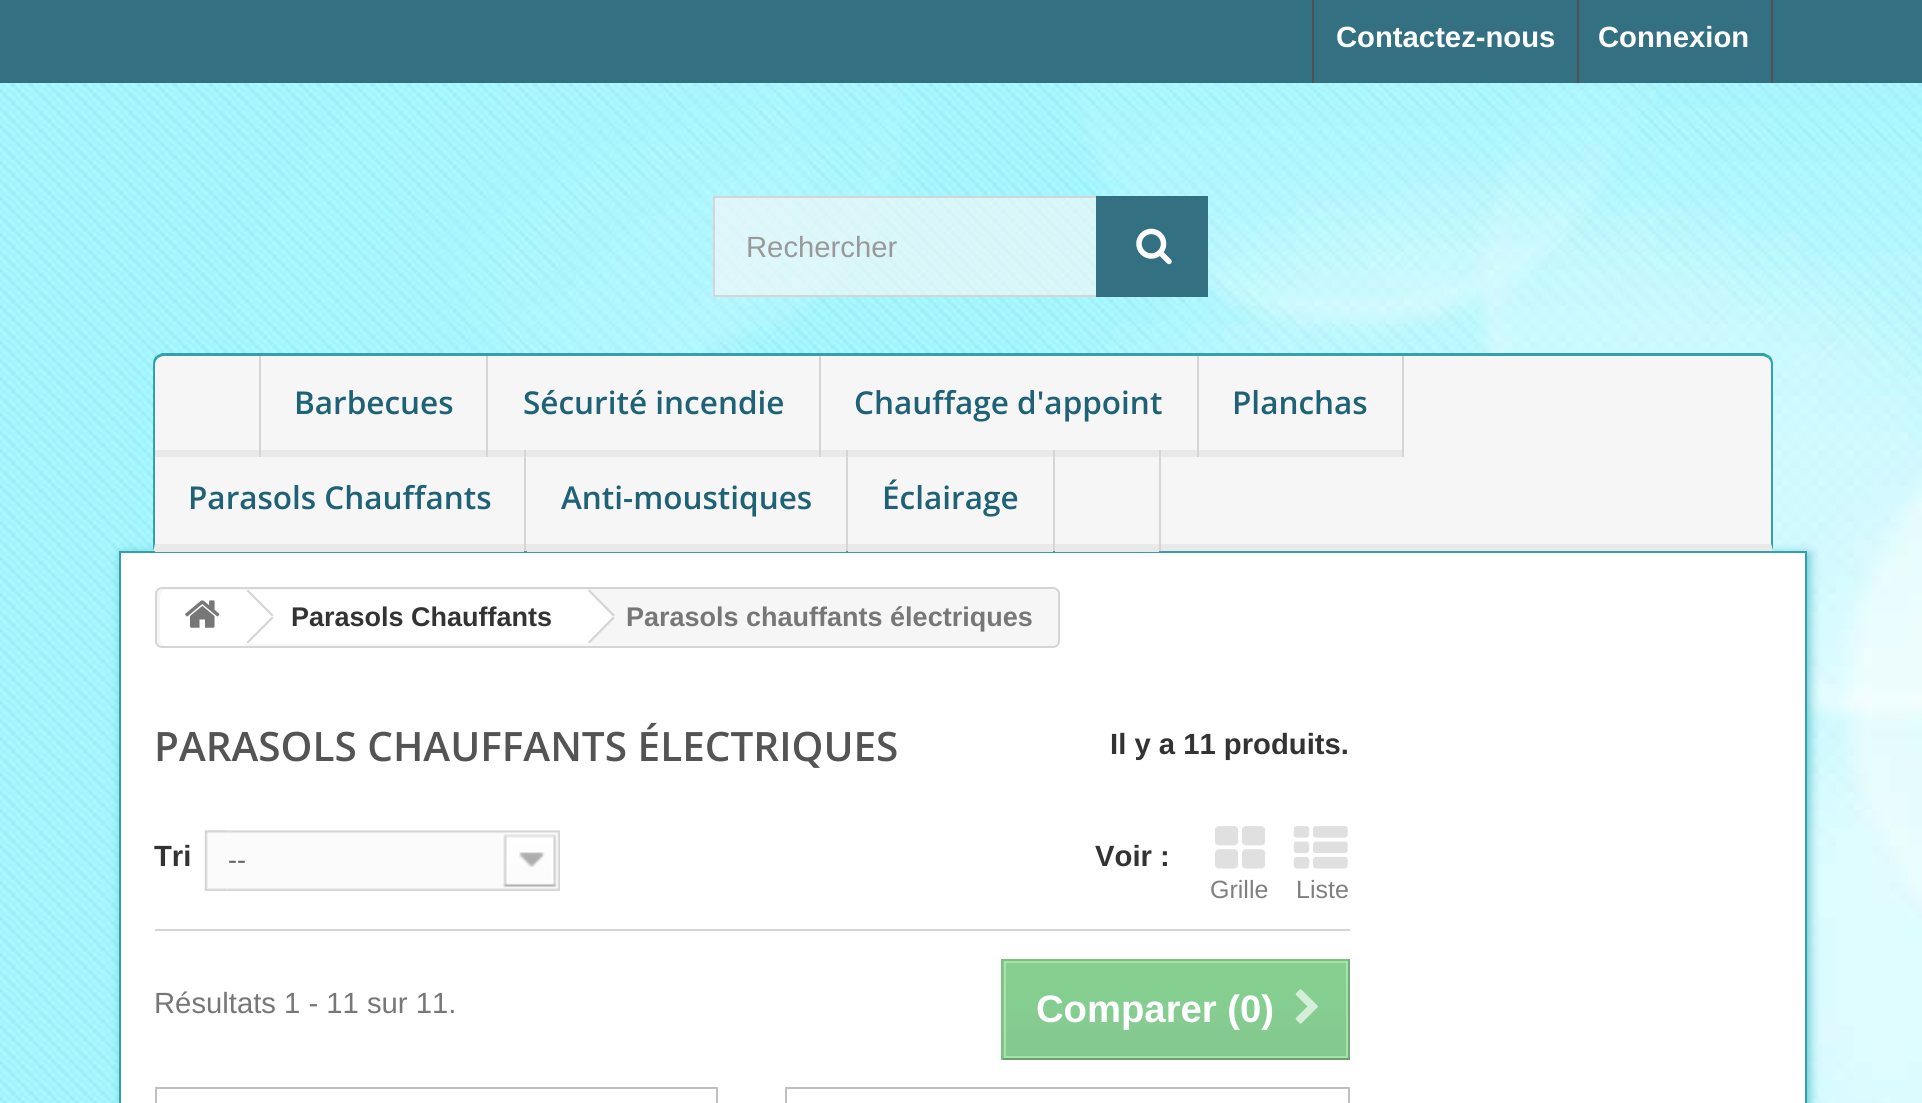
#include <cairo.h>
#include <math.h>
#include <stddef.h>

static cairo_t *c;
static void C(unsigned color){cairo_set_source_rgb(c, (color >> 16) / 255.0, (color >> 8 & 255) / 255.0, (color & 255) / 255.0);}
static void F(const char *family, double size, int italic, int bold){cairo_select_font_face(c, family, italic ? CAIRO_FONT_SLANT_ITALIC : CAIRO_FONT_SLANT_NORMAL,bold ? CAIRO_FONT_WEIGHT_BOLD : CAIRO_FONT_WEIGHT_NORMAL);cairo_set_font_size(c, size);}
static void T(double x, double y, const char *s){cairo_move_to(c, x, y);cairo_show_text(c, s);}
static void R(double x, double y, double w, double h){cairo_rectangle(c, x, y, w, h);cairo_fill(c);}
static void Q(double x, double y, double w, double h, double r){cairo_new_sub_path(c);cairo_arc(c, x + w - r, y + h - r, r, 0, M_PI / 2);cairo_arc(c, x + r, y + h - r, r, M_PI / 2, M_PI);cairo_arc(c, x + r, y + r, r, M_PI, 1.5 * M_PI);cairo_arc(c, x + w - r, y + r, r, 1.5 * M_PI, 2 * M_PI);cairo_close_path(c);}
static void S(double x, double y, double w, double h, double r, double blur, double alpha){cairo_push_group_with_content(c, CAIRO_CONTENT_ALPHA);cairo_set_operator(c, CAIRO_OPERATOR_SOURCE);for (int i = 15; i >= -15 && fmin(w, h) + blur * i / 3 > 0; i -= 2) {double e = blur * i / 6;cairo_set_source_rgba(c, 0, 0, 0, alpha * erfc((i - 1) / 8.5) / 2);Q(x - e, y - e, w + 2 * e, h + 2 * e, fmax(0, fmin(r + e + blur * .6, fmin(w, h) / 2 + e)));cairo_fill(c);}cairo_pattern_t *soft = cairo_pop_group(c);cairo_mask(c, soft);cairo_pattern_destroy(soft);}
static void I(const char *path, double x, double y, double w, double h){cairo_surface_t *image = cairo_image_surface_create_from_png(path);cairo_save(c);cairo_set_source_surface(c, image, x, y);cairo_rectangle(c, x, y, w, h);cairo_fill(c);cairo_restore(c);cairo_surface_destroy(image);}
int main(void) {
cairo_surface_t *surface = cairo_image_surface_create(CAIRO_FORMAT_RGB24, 1922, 1103);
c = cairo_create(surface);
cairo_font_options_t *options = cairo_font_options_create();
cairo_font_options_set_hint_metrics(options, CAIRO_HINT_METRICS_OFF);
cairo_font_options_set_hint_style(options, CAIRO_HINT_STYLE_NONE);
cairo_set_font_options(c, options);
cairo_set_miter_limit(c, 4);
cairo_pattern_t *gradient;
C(0xffffff);
cairo_paint(c);
I("1.png",0,83,1922,1020);
C(0x327082);
R(0,0,1922,83);
C(0x515151);
R(1312,0,2,83);
F("Liberation Sans",29.25,0,1);
C(0xffffff);
T(1336,47,"Contactez-nous");
C(0x515151);
R(1771,0,2,83);
R(1577,0,2,83);
C(0xffffff);
T(1598,47,"Connexion");
cairo_set_source_rgba(c,0.973,0.973,0.973,0.63);
R(715,198,381,97);
cairo_rectangle(c,714,197,493,99);
C(0xd6d4d4);
cairo_stroke(c);
F("Liberation Sans",29.25,0,0);
C(0x999999);
T(746,257,"Rechercher");
C(0x327082);
R(1096,196,112,101);
I("2.png",1136,228,36,37);
C(0x5bc0cc);
S(122,554,1687,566,0,5.5,1);
C(0xf6f6f6);
cairo_new_path(c);
cairo_move_to(c,164,356);
cairo_line_to(c,1762,356);
cairo_curve_to(c,1767,356,1771,360,1771,365);
cairo_line_to(c,1771,545);
cairo_line_to(c,155,545);
cairo_line_to(c,155,365);
cairo_curve_to(c,155,360,159,356,164,356);
cairo_close_path(c);
cairo_fill(c);
C(0x34a0ad);
cairo_new_path(c);
cairo_move_to(c,164,356);
cairo_curve_to(c,162,356,160,357,158,358);
cairo_line_to(c,156,356);
cairo_curve_to(c,158,355,160,354,162,353);
cairo_line_to(c,1764,353);
cairo_curve_to(c,1766,354,1768,355,1770,356);
cairo_line_to(c,1768,358);
cairo_curve_to(c,1766,357,1764,356,1762,356);
cairo_close_path(c);
cairo_fill(c);
cairo_new_path(c);
cairo_move_to(c,1773,551);
cairo_line_to(c,1773,364);
cairo_curve_to(c,1773,361,1772,358,1770,356);
cairo_line_to(c,1768,358);
cairo_curve_to(c,1770,360,1771,362,1771,364);
cairo_line_to(c,1771,544);
cairo_close_path(c);
cairo_fill(c);
C(0xe9e9e9);
cairo_new_path(c);
cairo_move_to(c,1773,551);
cairo_line_to(c,153,551);
cairo_line_to(c,155,544);
cairo_line_to(c,1771,544);
cairo_close_path(c);
cairo_fill(c);
C(0x34a0ad);
cairo_new_path(c);
cairo_move_to(c,153,364);
cairo_line_to(c,153,551);
cairo_line_to(c,155,544);
cairo_line_to(c,155,364);
cairo_curve_to(c,155,362,156,360,158,358);
cairo_line_to(c,156,356);
cairo_curve_to(c,154,358,153,361,153,364);
cairo_close_path(c);
cairo_fill(c);
C(0xd6d4d4);
R(259,356,2,101);
C(0xe9e9e9);
R(155,450,104,7);
C(0xd6d4d4);
R(486,356,2,101);
C(0xe9e9e9);
R(261,450,225,7);
F("Open Sans SemiBold",31.5,0,0);
C(0x1f6276);
T(294,414,"Barbecues");
C(0xd6d4d4);
R(819,356,2,101);
C(0xe9e9e9);
R(488,450,331,7);
C(0x1f6276);
T(523,414,"Sécurité incendie");
C(0xd6d4d4);
R(1197,356,2,101);
C(0xe9e9e9);
R(821,450,376,7);
C(0x1f6276);
T(854,414,"Chauffage d'appoint");
C(0xd6d4d4);
R(1402,356,2,101);
C(0xe9e9e9);
R(1199,450,203,7);
C(0x1f6276);
T(1232,414,"Planchas");
C(0xd6d4d4);
R(524,450,2,101);
C(0xffffff);
cairo_rectangle(c,120,552,1686,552);
cairo_fill_preserve(c);
C(0x34a0ad);
cairo_stroke(c);
C(0xe9e9e9);
R(155,551,369,1);
C(0x1f6276);
T(188,509,"Parasols Chauffants");
C(0xd6d4d4);
R(846,450,2,101);
C(0xe9e9e9);
R(527,551,319,1);
C(0x1f6276);
T(561,509,"Anti-moustiques");
C(0xd6d4d4);
R(1053,450,2,101);
C(0xe9e9e9);
R(848,551,205,1);
C(0x1f6276);
T(882,509,"Éclairage");
C(0xd6d4d4);
R(1159,450,2,101);
C(0xe9e9e9);
R(1055,551,104,1);
C(0xf6f6f6);
Q(156,588,903,59,6);
cairo_fill_preserve(c);
C(0xd6d4d4);
cairo_stroke(c);
C(0xffffff);
cairo_new_path(c);
cairo_move_to(c,167,590);
cairo_line_to(c,245,590);
cairo_line_to(c,245,646);
cairo_line_to(c,167,646);
cairo_curve_to(c,163,646,160,643,160,639);
cairo_line_to(c,160,597);
cairo_curve_to(c,160,593,163,590,167,590);
cairo_close_path(c);
cairo_fill(c);
I("3.png",185,600,35,28);
R(245,590,340,54);
C(0xd6d4d4);
cairo_new_path(c);
cairo_move_to(c,248,589.5);
cairo_line_to(c,273.5,615);
cairo_line_to(c,272,616.5);
cairo_line_to(c,246.5,591);
cairo_close_path(c);
cairo_fill(c);
cairo_new_path(c);
cairo_move_to(c,272,616.5);
cairo_line_to(c,273.5,618);
cairo_line_to(c,248,643.5);
cairo_line_to(c,246.5,642);
cairo_close_path(c);
cairo_fill(c);
F("Liberation Sans",27,0,1);
C(0x333333);
T(291,626,"Parasols Chauffants");
C(0xffffff);
cairo_new_path(c);
cairo_move_to(c,591,591);
cairo_curve_to(c,590,590,588,590,586,590);
cairo_line_to(c,562,613);
cairo_curve_to(c,561,615,561,618,562,620);
cairo_line_to(c,585,642);
cairo_curve_to(c,586,644,589,644,591,642);
cairo_line_to(c,613,620);
cairo_curve_to(c,615,618,615,615,613,613);
cairo_close_path(c);
cairo_fill(c);
C(0xd6d4d4);
cairo_new_path(c);
cairo_move_to(c,589.5,589.5);
cairo_line_to(c,615,615);
cairo_line_to(c,613,616.5);
cairo_line_to(c,588,591);
cairo_close_path(c);
cairo_fill(c);
cairo_new_path(c);
cairo_move_to(c,613,616.5);
cairo_line_to(c,615,618);
cairo_line_to(c,589.5,643.5);
cairo_line_to(c,588,642);
cairo_close_path(c);
cairo_fill(c);
C(0x777777);
T(626,626,"Parasols chauffants électriques");
F("Open Sans SemiBold",40.5,0,0);
C(0x555454);
T(154,761,"PARASOLS CHAUFFANTS ÉLECTRIQUES");
F("Liberation Sans",29.25,0,1);
C(0x333333);
T(1110,754,"Il y a 11 produits.");
C(0xd6d4d4);
R(155,929,1195,2);
C(0x333333);
T(154,866,"Tri");
I("4.png",204,830,24,61);
I("5.png",227,830,333,61);
F("Liberation Sans",27,0,0);
C(0x666666);
T(228,869,"--");
F("Liberation Sans",29.25,0,1);
C(0x333333);
T(1095,866,"Voir :");
I("6.png",1215,826,51,43);
F("Liberation Sans",25,0,0);
C(0x808080);
T(1210,898,"Grille");
I("7.png",1293,826,55,43);
T(1296,898,"Liste");
F("Liberation Sans",29.25,0,0);
C(0x777777);
T(154,1013,"Résultats 1 - 11 sur 11.");
gradient = cairo_pattern_create_linear(1176,961,1176,1058);
cairo_pattern_add_color_stop_rgba(gradient,0,0.522,0.816,0.565,1);
cairo_pattern_add_color_stop_rgba(gradient,.02,0.518,0.816,0.573,1);
cairo_pattern_add_color_stop_rgba(gradient,.04,0.518,0.82,0.565,1);
cairo_pattern_add_color_stop_rgba(gradient,.06,0.522,0.816,0.569,1);
cairo_pattern_add_color_stop_rgba(gradient,.38,0.518,0.808,0.565,1);
cairo_pattern_add_color_stop_rgba(gradient,.4,0.522,0.808,0.569,1);
cairo_pattern_add_color_stop_rgba(gradient,.66,0.525,0.796,0.569,1);
cairo_pattern_add_color_stop_rgba(gradient,.74,0.518,0.792,0.561,1);
cairo_pattern_add_color_stop_rgba(gradient,.91,0.518,0.788,0.561,1);
cairo_pattern_add_color_stop_rgba(gradient,.94,0.518,0.792,0.569,1);
cairo_pattern_add_color_stop_rgba(gradient,.96,0.522,0.784,0.565,1);
cairo_pattern_add_color_stop_rgba(gradient,1,0.518,0.788,0.561,1);
cairo_set_source(c,gradient);
cairo_pattern_destroy(gradient);
R(1003,961,343,97);
C(0x7ebd89);
R(1001,959,349,2);
C(0x71ac7a);
R(1348,959,2,101);
C(0x6aa073);
R(1001,1058,349,2);
C(0x7ebd89);
R(1001,959,2,101);
cairo_rectangle(c,1005,962,342,95);
C(0xa5e4a7);
cairo_stroke(c);
F("Liberation Sans",38.25,0,1);
C(0xffffff);
T(1036,1022,"Comparer (0)");
I("8.png",1295,989,23,35);
C(0xc0c0c0);
R(155,1087,563,2);
R(716,1087,2,16);
R(155,1087,2,16);
R(785,1087,565,2);
R(1348,1087,2,16);
R(785,1087,2,16);
cairo_surface_write_to_png(surface, "o.png");
cairo_font_options_destroy(options);
cairo_destroy(c);
cairo_surface_destroy(surface);
return 0;
}
